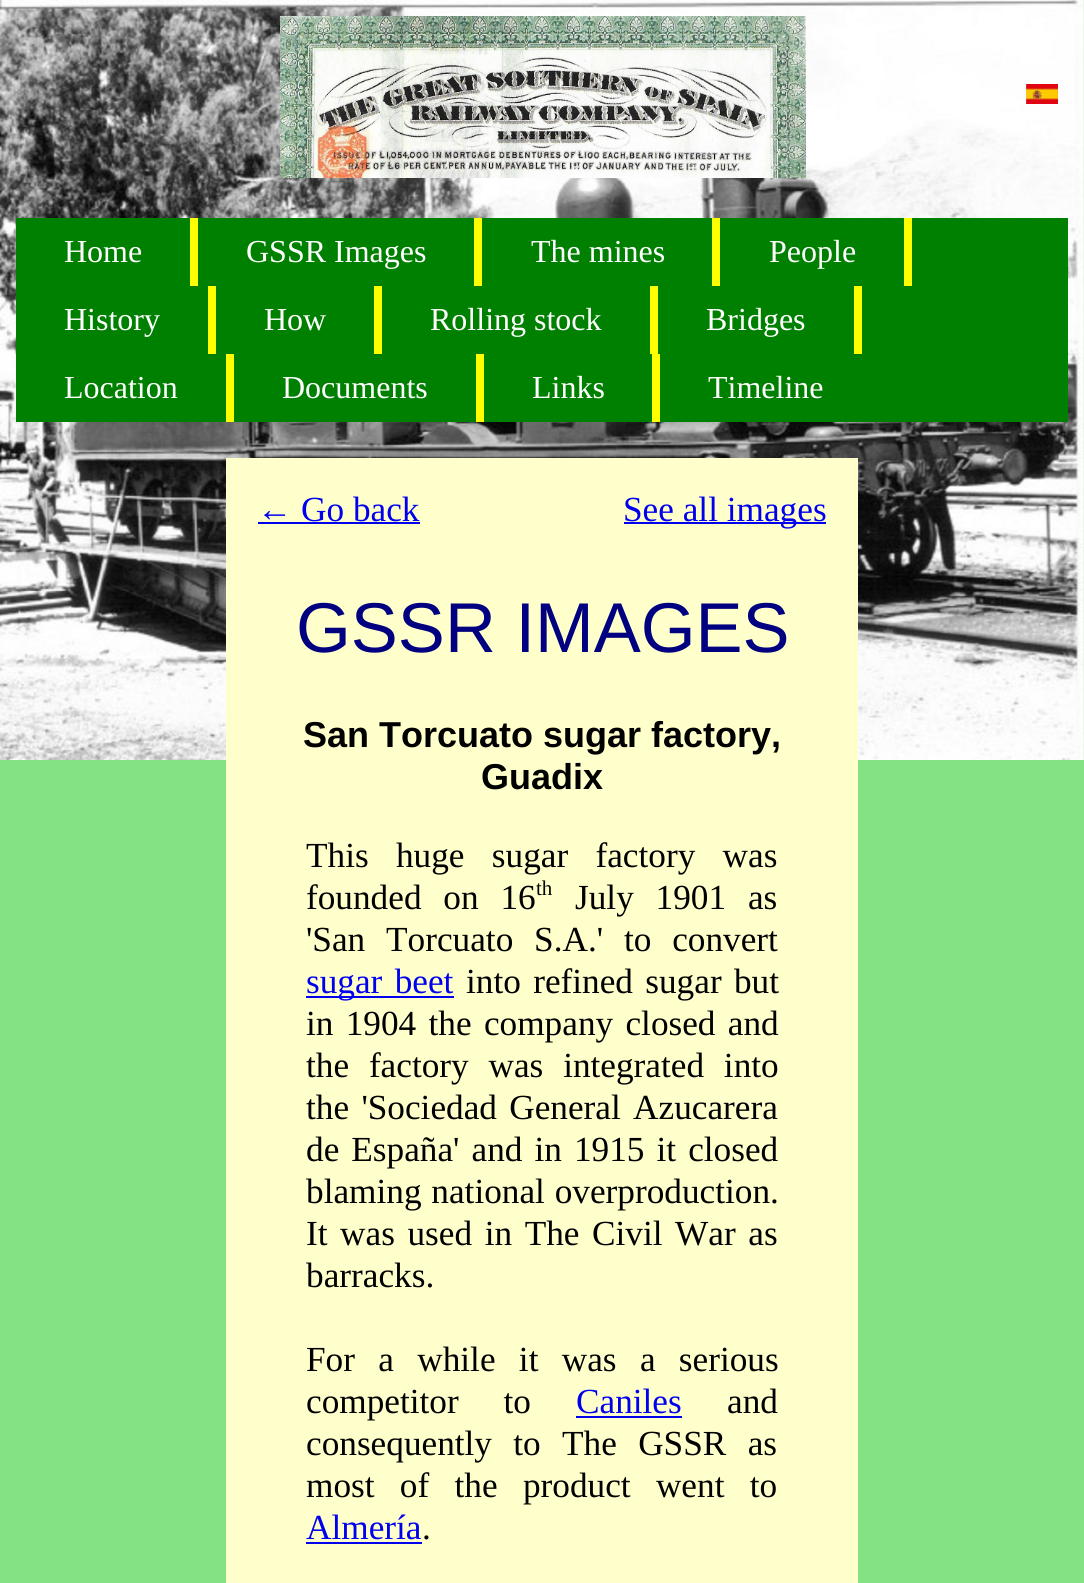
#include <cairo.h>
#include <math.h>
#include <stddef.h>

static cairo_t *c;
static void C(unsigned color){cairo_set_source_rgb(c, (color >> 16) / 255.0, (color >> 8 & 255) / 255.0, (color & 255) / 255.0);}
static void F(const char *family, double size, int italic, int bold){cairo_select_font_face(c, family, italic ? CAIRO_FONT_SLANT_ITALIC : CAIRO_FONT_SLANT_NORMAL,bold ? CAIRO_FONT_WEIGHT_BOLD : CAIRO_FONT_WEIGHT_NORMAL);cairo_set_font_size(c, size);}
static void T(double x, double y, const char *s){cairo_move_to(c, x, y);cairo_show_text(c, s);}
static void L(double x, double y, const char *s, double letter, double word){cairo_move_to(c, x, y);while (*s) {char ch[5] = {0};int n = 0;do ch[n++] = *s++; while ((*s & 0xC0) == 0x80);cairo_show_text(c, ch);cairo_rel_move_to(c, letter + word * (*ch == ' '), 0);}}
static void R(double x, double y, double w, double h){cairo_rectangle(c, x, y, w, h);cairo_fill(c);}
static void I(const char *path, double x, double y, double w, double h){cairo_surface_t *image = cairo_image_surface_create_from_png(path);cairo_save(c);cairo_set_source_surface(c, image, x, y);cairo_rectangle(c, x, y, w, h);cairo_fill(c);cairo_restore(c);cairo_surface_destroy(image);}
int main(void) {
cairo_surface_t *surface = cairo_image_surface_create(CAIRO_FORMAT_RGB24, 1084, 1583);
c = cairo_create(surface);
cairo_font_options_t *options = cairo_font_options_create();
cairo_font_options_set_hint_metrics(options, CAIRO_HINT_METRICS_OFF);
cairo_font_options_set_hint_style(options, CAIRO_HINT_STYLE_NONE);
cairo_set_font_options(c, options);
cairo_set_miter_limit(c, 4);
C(0x84e184);
cairo_paint(c);
I("1.png",0,0,1084,760);
I("2.png",280,16,526,162);
I("3.png",1026,84,32,20);
C(0x008000);
R(16,218,1052,204);
C(0xffff00);
R(190,218,8,68);
F("Liberation Serif",32,0,0);
C(0xffffff);
T(64,262,"Home");
C(0xffff00);
R(474,218,8,68);
C(0xffffff);
T(246,262,"GSSR Images");
C(0xffff00);
R(712,218,8,68);
C(0xffffff);
T(531,262,"The mines");
C(0xffff00);
R(904,218,8,68);
C(0xffffff);
T(769,262,"People");
C(0xffff00);
R(208,286,8,68);
C(0xffffff);
T(64,330,"History");
C(0xffff00);
R(374,286,8,68);
C(0xffffff);
T(264,330,"How");
C(0xffff00);
R(650,286,8,68);
C(0xffffff);
T(430,330,"Rolling stock");
C(0xffff00);
R(854,286,8,68);
C(0xffffff);
T(706,330,"Bridges");
C(0xffff00);
R(226,354,8,68);
C(0xffffff);
T(64,398,"Location");
C(0xffff00);
R(476,354,8,68);
C(0xffffff);
T(282,398,"Documents");
C(0xffff00);
R(652,354,8,68);
C(0xffffff);
T(532,398,"Links");
T(708,398,"Timeline");
C(0xffffcc);
R(226,458,632,1125);
F("Liberation Serif",35.25,0,0);
C(0x0000ee);
T(257,521,"← Go back");
R(258,522,162,2);
R(624,522,202,2);
T(623,521,"See all images");
F("Liberation Sans",70.5,0,0);
C(0x000080);
T(296,652,"GSSR IMAGES");
F("Liberation Sans",36,0,1);
C(0x000000);
T(303,747,"San Torcuato sugar factory,");
T(481,789,"Guadix");
F("Liberation Serif",35.25,0,0);
L(306,867,"This huge sugar factory was",0,18.5);
L(306,909,"founded on 16",0,13);
F("Liberation Serif",21,0,0);
T(536,895,"th");
F("Liberation Serif",35.25,0,0);
L(575,909,"July 1901 as",0,13);
L(306,951,"'San Torcuato S.A.' to convert",0,12);
C(0x0000ee);
R(306,996,148,2);
L(306,993,"sugar beet",0,3.5);
C(0x000000);
L(466,993,"into refined sugar but",0,3.5);
L(306,1035,"in 1904 the company closed and",0,3.5);
L(306,1077,"the factory was integrated into",0,11);
L(306,1119,"the 'Sociedad General Azucarera",0,3.5);
L(306,1161,"de España' and in 1915 it closed",0,3.25);
L(306,1203,"blaming national overproduction.",0,1);
L(306,1245,"It was used in The Civil War as",0,3.75);
T(306,1287,"barracks.");
L(306,1371,"For a while it was a serious",0,14.5);
L(306,1413,"competitor to",0,36);
C(0x0000ee);
T(576,1413,"Caniles");
R(576,1416,106,2);
C(0x000000);
T(727,1413,"and");
L(306,1455,"consequently to The GSSR as",0,12.5);
L(306,1497,"most of the product went to",0,16.5);
C(0x0000ee);
T(306,1539,"Almería");
R(306,1542,116,2);
C(0x000000);
T(422,1539,".");
cairo_surface_write_to_png(surface, "o.png");
cairo_font_options_destroy(options);
cairo_destroy(c);
cairo_surface_destroy(surface);
return 0;
}
